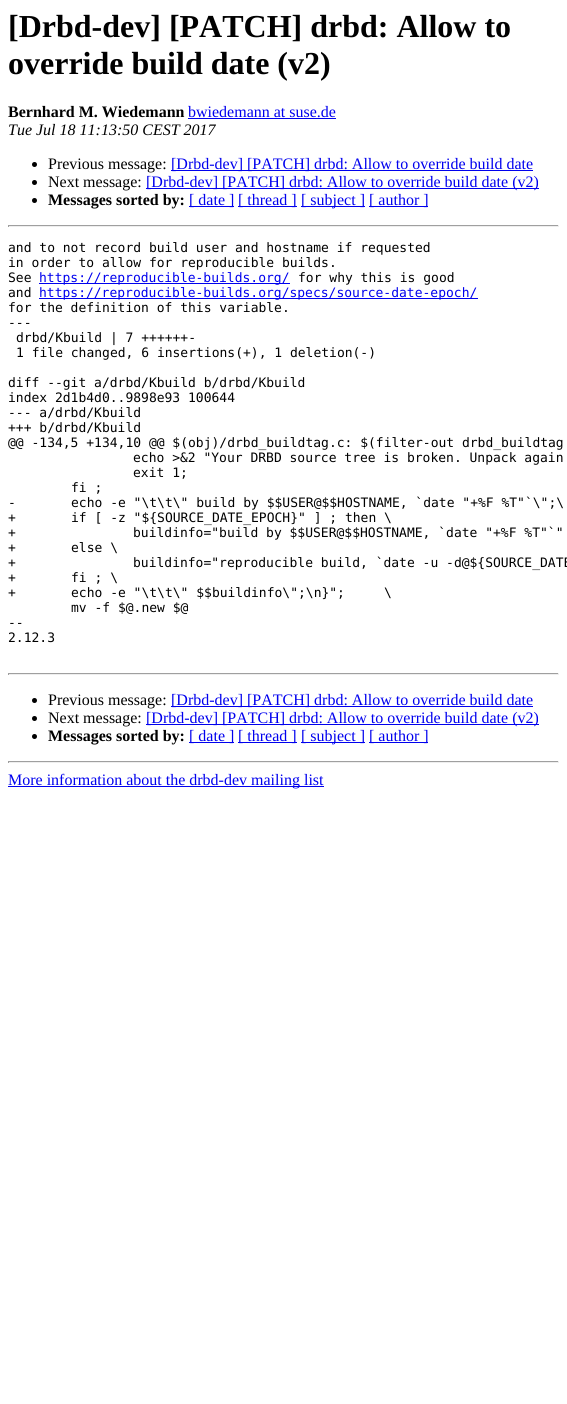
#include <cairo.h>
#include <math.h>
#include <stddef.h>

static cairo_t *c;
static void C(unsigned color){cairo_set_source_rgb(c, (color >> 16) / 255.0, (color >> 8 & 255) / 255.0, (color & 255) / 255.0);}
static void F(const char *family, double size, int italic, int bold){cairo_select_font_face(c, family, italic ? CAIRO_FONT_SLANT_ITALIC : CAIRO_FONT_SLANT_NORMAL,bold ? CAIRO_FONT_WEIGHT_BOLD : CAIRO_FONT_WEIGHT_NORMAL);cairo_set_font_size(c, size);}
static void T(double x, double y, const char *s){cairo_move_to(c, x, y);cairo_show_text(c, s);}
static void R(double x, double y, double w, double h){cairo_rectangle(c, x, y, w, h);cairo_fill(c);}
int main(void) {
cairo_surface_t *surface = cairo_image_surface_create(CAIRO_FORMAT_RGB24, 567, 1404);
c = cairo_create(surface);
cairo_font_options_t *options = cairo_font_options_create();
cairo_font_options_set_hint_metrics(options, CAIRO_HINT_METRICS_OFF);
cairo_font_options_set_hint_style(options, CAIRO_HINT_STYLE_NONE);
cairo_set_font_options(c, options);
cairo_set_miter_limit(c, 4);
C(0xffffff);
cairo_paint(c);
F("Liberation Serif",32,0,1);
C(0x000000);
T(8,37,"[Drbd-dev] [PATCH] drbd: Allow to");
T(8,74,"override build date (v2)");
F("Liberation Serif",16,0,1);
T(8,117,"Bernhard M. Wiedemann");
F("Liberation Serif",16,0,0);
C(0x0000ee);
T(188,117,"bwiedemann at suse.de");
R(188,118,148,1);
F("Liberation Serif",16,1,0);
C(0x000000);
T(8,135,"Tue Jul 18 11:13:50 CEST 2017");
cairo_new_path(c);
cairo_arc(c,34.5,164.5,2.5,0,2 * M_PI);
cairo_fill(c);
F("Liberation Serif",16,0,0);
T(48,169,"Previous message:");
C(0x0000ee);
R(171,170,362,1);
T(171,169,"[Drbd-dev] [PATCH] drbd: Allow to override build date");
C(0x000000);
cairo_new_path(c);
cairo_arc(c,34.5,182.5,2.5,0,2 * M_PI);
cairo_fill(c);
T(48,187,"Next message:");
C(0x0000ee);
R(146,188,393,1);
T(146,187,"[Drbd-dev] [PATCH] drbd: Allow to override build date (v2)");
C(0x000000);
cairo_new_path(c);
cairo_arc(c,34.5,200.5,2.5,0,2 * M_PI);
cairo_fill(c);
F("Liberation Serif",16,0,1);
T(48,205,"Messages sorted by:");
C(0x0000ee);
R(189,206,45,1);
F("Liberation Serif",16,0,0);
T(189,205,"[ date ]");
R(238,206,59,1);
T(238,205,"[ thread ]");
R(301,206,64,1);
T(301,205,"[ subject ]");
R(369,206,59,1);
T(369,205,"[ author ]");
C(0x9f9f9f);
R(8,225,551,1);
C(0xeeeeee);
R(558,225,1,2);
R(8,226,551,1);
C(0x9f9f9f);
R(8,225,1,2);
F("DejaVu Sans Mono",13,0,0);
C(0x000000);
T(8,252,"and to not record build user and hostname if requested");
T(8,267,"in order to allow for reproducible builds.");
T(8,282,"See");
C(0x0000ee);
R(39,283,251,1);
T(39,282,"https://reproducible-builds.org/");
C(0x000000);
T(298,282,"for why this is good");
T(8,297,"and");
C(0x0000ee);
R(39,298,439,1);
T(39,297,"https://reproducible-builds.org/specs/source-date-epoch/");
C(0x000000);
T(8,312,"for the definition of this variable.");
T(8,327,"---");
T(16,342,"drbd/Kbuild | 7 ++++++-");
T(16,357,"1 file changed, 6 insertions(+), 1 deletion(-)");
T(8,387,"diff --git a/drbd/Kbuild b/drbd/Kbuild");
T(8,402,"index 2d1b4d0..9898e93 100644");
T(8,417,"--- a/drbd/Kbuild");
T(8,432,"+++ b/drbd/Kbuild");
T(8,447,"@@ -134,5 +134,10 @@ $(obj)/drbd_buildtag.c: $(filter-out drbd_buildtag");
T(133,462,"echo >&2 \"Your DRBD source tree is broken. Unpack again");
T(133,477,"exit 1;");
T(71,492,"fi ;");
T(8,507,"-");
T(71,507,"echo -e \"\\t\\t\\\" build by $$USER@$$HOSTNAME, `date \"+%F %T\"`\\\";\\");
T(8,522,"+");
T(71,522,"if [ -z \"${SOURCE_DATE_EPOCH}\" ] ; then \\");
T(8,537,"+");
T(133,537,"buildinfo=\"build by $$USER@$$HOSTNAME, `date \"+%F %T\"`\"");
T(8,552,"+");
T(71,552,"else \\");
T(8,567,"+");
T(133,567,"buildinfo=\"reproducible build, `date -u -d@${SOURCE_DATE");
T(8,582,"+");
T(71,582,"fi ; \\");
T(8,597,"+");
T(71,597,"echo -e \"\\t\\t\\\" $$buildinfo\\\";\\n}\";");
T(384,597,"\\");
T(71,612,"mv -f $@.new $@");
T(8,627,"--");
T(8,642,"2.12.3");
C(0x9f9f9f);
R(8,673,551,1);
C(0xeeeeee);
R(558,673,1,2);
R(8,674,551,1);
C(0x9f9f9f);
R(8,673,1,2);
C(0x000000);
cairo_new_path(c);
cairo_arc(c,34.5,700.5,2.5,0,2 * M_PI);
cairo_fill(c);
F("Liberation Serif",16,0,0);
T(48,705,"Previous message:");
C(0x0000ee);
R(171,706,362,1);
T(171,705,"[Drbd-dev] [PATCH] drbd: Allow to override build date");
C(0x000000);
cairo_new_path(c);
cairo_arc(c,34.5,718.5,2.5,0,2 * M_PI);
cairo_fill(c);
T(48,723,"Next message:");
C(0x0000ee);
R(146,724,393,1);
T(146,723,"[Drbd-dev] [PATCH] drbd: Allow to override build date (v2)");
C(0x000000);
cairo_new_path(c);
cairo_arc(c,34.5,736.5,2.5,0,2 * M_PI);
cairo_fill(c);
F("Liberation Serif",16,0,1);
T(48,741,"Messages sorted by:");
C(0x0000ee);
R(189,742,45,1);
F("Liberation Serif",16,0,0);
T(189,741,"[ date ]");
R(238,742,59,1);
T(238,741,"[ thread ]");
R(301,742,64,1);
T(301,741,"[ subject ]");
R(369,742,59,1);
T(369,741,"[ author ]");
C(0x9f9f9f);
R(8,761,551,1);
C(0xeeeeee);
R(558,761,1,2);
R(8,762,551,1);
C(0x9f9f9f);
R(8,761,1,2);
C(0x0000ee);
R(8,786,316,1);
T(8,785,"More information about the drbd-dev mailing list");
cairo_surface_write_to_png(surface, "o.png");
cairo_font_options_destroy(options);
cairo_destroy(c);
cairo_surface_destroy(surface);
return 0;
}
